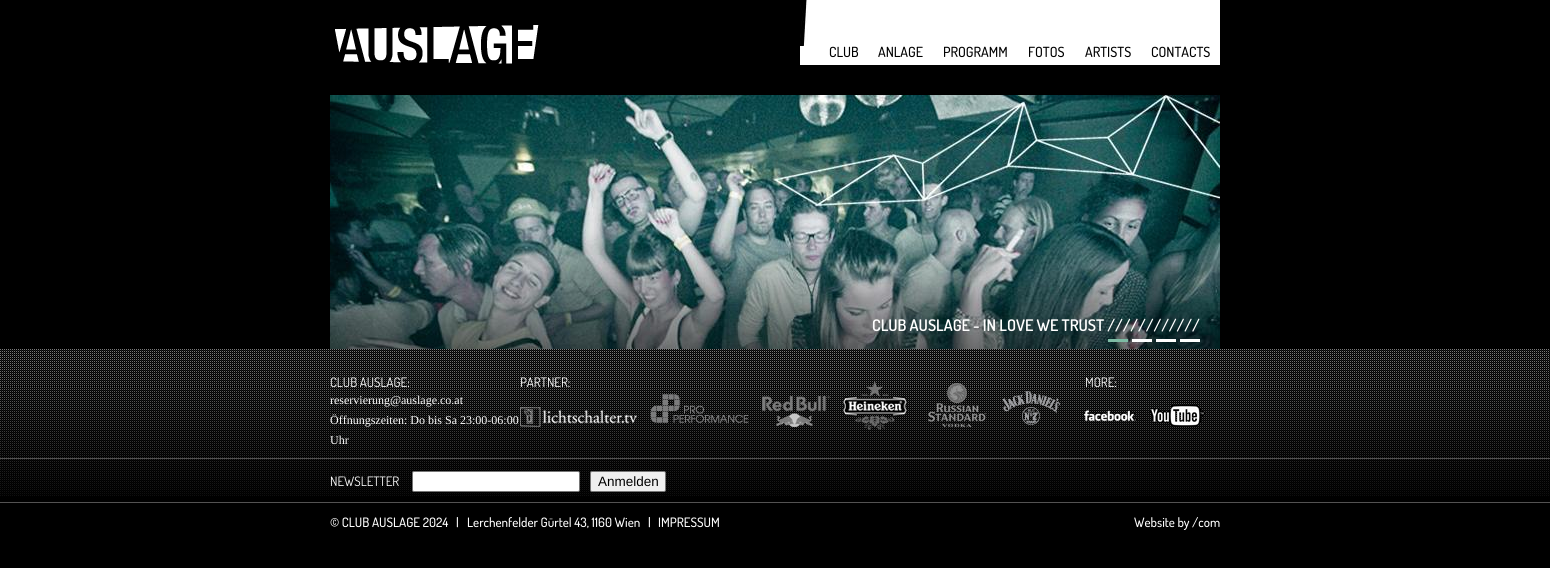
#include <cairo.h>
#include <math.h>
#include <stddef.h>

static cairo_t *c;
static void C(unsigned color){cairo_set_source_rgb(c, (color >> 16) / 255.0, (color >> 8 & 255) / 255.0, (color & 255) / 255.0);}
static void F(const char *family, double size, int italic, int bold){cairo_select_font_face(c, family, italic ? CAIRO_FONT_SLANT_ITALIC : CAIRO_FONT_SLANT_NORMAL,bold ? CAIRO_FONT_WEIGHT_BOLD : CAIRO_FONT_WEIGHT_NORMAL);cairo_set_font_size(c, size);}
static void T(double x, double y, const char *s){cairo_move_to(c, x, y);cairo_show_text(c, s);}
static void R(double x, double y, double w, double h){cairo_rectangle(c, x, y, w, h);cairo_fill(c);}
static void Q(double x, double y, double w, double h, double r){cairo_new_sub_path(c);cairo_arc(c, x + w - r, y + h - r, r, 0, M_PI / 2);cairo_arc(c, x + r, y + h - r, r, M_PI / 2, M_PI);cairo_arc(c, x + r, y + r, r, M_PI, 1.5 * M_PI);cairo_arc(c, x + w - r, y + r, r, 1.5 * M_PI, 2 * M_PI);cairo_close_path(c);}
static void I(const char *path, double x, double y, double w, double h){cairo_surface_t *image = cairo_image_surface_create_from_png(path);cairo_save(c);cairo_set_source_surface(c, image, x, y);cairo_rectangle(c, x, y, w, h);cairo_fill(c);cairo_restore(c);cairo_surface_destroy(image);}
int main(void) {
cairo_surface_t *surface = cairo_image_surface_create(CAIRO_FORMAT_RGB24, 1550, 568);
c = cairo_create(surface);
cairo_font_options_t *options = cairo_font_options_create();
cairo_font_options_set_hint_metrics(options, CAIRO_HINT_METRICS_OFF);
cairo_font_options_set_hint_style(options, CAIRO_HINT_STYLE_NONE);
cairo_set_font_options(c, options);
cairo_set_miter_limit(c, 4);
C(0x000000);
cairo_paint(c);
I("1.png",335,25,204,39);
C(0xffffff);
R(800,0,420,65);
I("2.png",800,0,8,46);
F("Dosis Medium",14,0,0);
C(0x000000);
T(829,57,"CLUB");
T(878,57,"ANLAGE");
T(943,57,"PROGRAMM");
T(1028,57,"FOTOS");
T(1085,57,"ARTISTS");
T(1151,57,"CONTACTS");
I("3.png",330,95,890,254);
F("Dosis SemiBold",16,0,0);
C(0xffffff);
T(872,331,"CLUB AUSLAGE - IN LOVE WE TRUST ////////////");
C(0x7dbba4);
R(1108,339,20,3);
C(0xffffff);
R(1132,339,20,3);
R(1156,339,20,3);
R(1180,339,20,3);
I("4.png",0,349,1550,147);
F("Dosis",13,0,0);
T(330,387,"CLUB AUSLAGE:");
F("Liberation Serif",12,0,0);
T(330,404,"reservierung@auslage.co.at");
T(330,424,"Öffnungszeiten: Do bis Sa 23:00-06:00");
T(330,444,"Uhr");
F("Dosis",13,0,0);
T(520,387,"PARTNER:");
I("5.png",520,380,540,50);
T(1085,387,"MORE:");
I("6.png",1084,410,53,11);
I("7.png",1150,405,55,22);
C(0x535252);
R(0,458,1550,1);
C(0xffffff);
T(330,486,"NEWSLETTER");
Q(412.5,471.5,167,20,1.5);
cairo_fill_preserve(c);
C(0x767676);
cairo_set_line_width(c,1);
cairo_stroke(c);
C(0xefefef);
Q(590.5,471.5,75,20,1.5);
cairo_fill_preserve(c);
C(0x767676);
cairo_stroke(c);
F("Liberation Sans",13.5,0,0);
C(0x000000);
T(598,486,"Anmelden");
C(0x535252);
R(0,502,1550,1);
F("Dosis Medium",13,0,0);
C(0xffffff);
T(330,527,"© CLUB AUSLAGE 2024");
T(456,527,"|");
T(467,527,"Lerchenfelder Gürtel 43, 1160 Wien");
T(648,527,"|");
T(658,527,"IMPRESSUM");
T(1134,527,"Website by /com");
cairo_surface_write_to_png(surface, "o.png");
cairo_font_options_destroy(options);
cairo_destroy(c);
cairo_surface_destroy(surface);
return 0;
}
